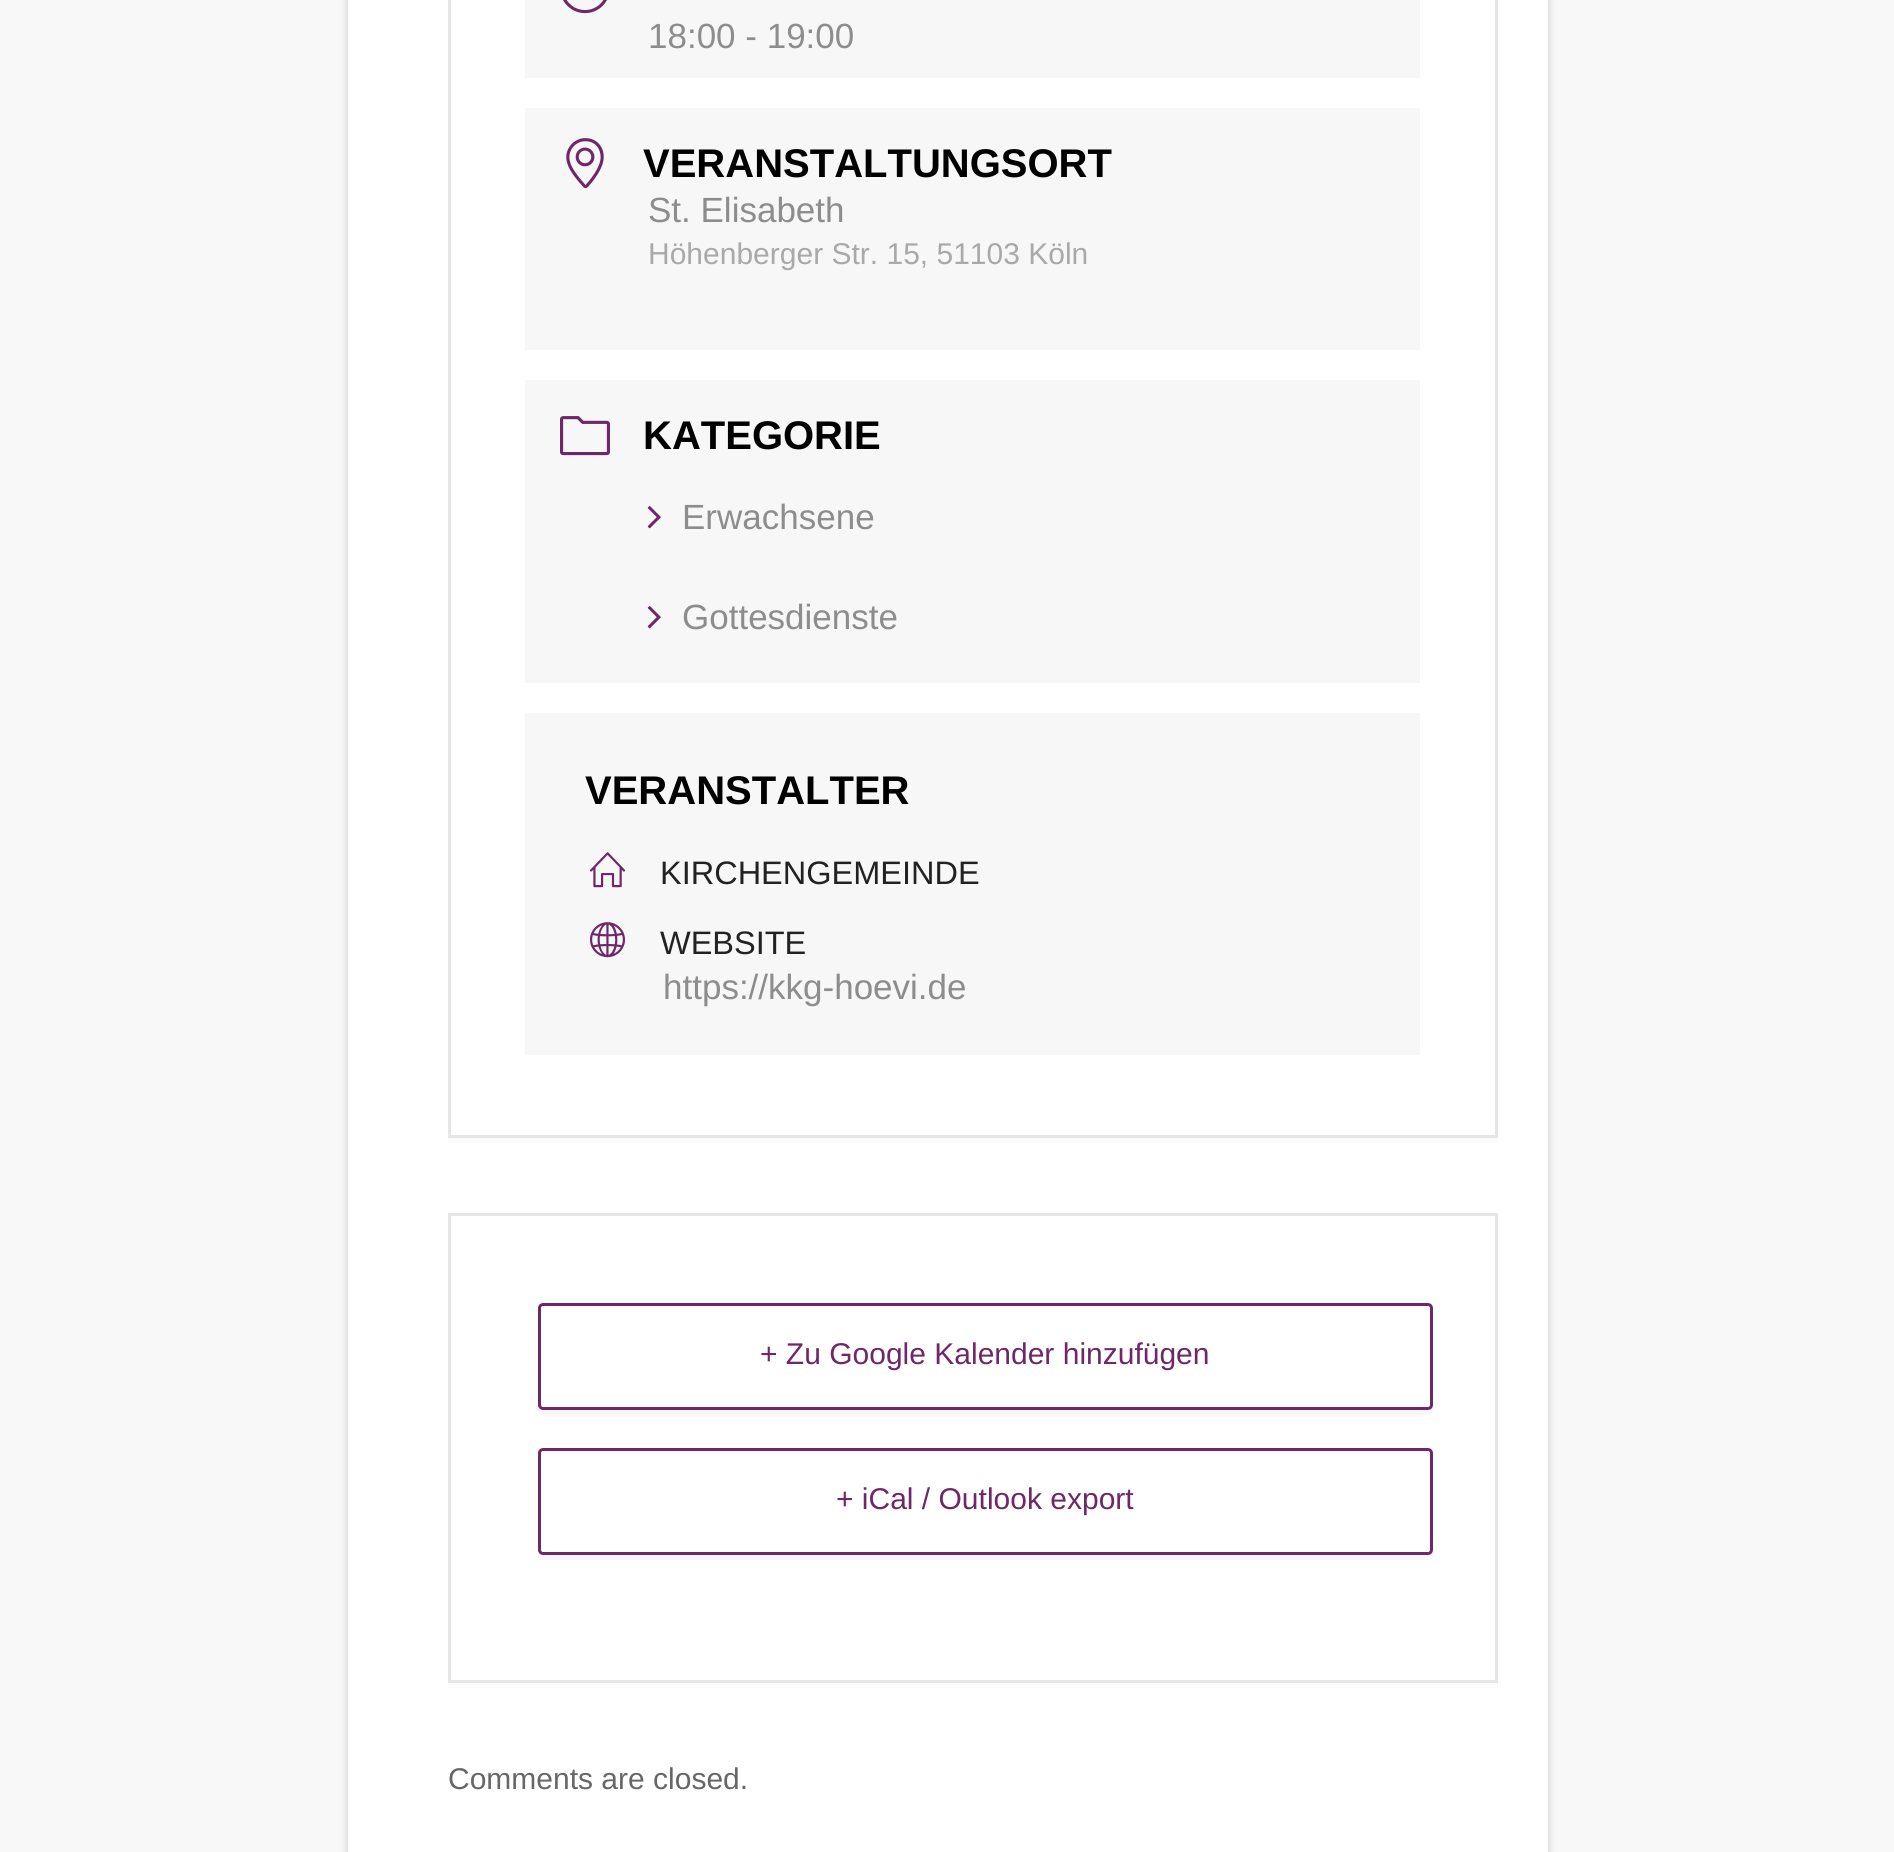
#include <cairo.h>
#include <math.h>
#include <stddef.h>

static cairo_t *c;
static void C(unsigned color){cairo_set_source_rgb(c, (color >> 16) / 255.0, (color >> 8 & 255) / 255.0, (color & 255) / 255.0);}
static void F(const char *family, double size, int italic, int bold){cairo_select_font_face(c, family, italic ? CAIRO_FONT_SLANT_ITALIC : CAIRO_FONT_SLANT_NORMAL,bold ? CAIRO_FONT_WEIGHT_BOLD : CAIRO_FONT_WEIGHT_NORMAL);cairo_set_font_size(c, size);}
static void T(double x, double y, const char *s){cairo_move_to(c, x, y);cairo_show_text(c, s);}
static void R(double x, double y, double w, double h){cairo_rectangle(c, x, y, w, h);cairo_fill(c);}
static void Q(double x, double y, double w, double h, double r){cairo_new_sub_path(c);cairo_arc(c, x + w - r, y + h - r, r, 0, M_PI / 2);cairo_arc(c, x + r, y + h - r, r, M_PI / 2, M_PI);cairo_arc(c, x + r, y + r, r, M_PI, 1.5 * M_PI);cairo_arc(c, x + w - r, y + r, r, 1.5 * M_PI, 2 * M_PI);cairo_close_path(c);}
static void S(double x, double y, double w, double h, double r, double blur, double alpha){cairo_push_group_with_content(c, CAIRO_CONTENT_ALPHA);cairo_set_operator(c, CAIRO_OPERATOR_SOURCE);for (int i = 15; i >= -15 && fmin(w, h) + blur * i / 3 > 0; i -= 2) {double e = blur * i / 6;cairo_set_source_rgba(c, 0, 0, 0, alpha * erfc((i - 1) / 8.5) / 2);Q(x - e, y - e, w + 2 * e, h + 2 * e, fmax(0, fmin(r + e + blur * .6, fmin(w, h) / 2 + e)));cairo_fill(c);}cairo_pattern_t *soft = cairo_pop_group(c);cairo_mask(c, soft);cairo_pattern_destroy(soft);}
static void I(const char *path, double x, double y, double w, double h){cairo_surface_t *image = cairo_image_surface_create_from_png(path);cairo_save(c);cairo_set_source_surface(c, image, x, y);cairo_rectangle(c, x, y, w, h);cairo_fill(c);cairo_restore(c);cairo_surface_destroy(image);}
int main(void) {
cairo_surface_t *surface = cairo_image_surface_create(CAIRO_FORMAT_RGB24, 1894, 1852);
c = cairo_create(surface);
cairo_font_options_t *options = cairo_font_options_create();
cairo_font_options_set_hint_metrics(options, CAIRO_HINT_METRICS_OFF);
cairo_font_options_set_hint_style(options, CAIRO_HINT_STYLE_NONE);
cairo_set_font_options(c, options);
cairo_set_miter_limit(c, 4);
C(0xf8f8f8);
cairo_paint(c);
C(0x000000);
S(348,-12,1200,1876,0,4,.2);
C(0xffffff);
R(348,0,1200,1852);
C(0xfbfbfb);
cairo_new_path(c);
cairo_move_to(c,448,1138);
cairo_line_to(c,448,1143);
cairo_line_to(c,1498,1143);
cairo_line_to(c,1498,-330);
cairo_line_to(c,1498,1138);
cairo_close_path(c);
cairo_fill(c);
cairo_rectangle(c,449.5,-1.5,1047,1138);
C(0xe6e6e6);
cairo_set_line_width(c,3);
cairo_stroke(c);
C(0xf7f7f7);
R(525,0,895,78);
I("1.png",563,0,44,14);
F("Liberation Sans",35,0,0);
C(0x8d8d8d);
T(648,48,"18:00 - 19:00");
C(0xf7f7f7);
R(525,108,895,242);
I("2.png",566,138,38,51);
F("Liberation Sans",40,0,1);
C(0x000000);
T(643,177,"VERANSTALTUNGSORT");
F("Liberation Sans",35,0,0);
C(0x8d8d8d);
T(648,222,"St. Elisabeth");
F("Liberation Sans",30,0,0);
C(0xa9a9a9);
T(648,264,"Höhenberger Str. 15, 51103 Köln");
C(0xf7f7f7);
R(525,380,895,303);
I("3.png",560,416,50,40);
F("Liberation Sans",40,0,1);
C(0x000000);
T(643,449,"KATEGORIE");
I("4.png",647,506,14,23);
F("Liberation Sans",35,0,0);
C(0x8d8d8d);
T(682,529,"Erwachsene");
I("4.png",647,606,14,23);
T(682,629,"Gottesdienste");
C(0xf7f7f7);
R(525,713,895,342);
F("Liberation Sans",40,0,1);
C(0x000000);
T(585,804,"VERANSTALTER");
I("5.png",590,852,36,36);
F("Liberation Sans",32.5,0,0);
C(0x222222);
T(660,884,"KIRCHENGEMEINDE");
I("6.png",590,922,35,36);
T(660,954,"WEBSITE");
F("Liberation Sans",35,0,0);
C(0x8d8d8d);
T(663,999,"https://kkg-hoevi.de");
C(0xfbfbfb);
cairo_new_path(c);
cairo_move_to(c,448,1682);
cairo_line_to(c,448,1688);
cairo_line_to(c,1498,1688);
cairo_line_to(c,1498,1218);
cairo_line_to(c,1498,1682);
cairo_close_path(c);
cairo_fill(c);
cairo_rectangle(c,449.5,1214.5,1047,467);
C(0xe6e6e6);
cairo_stroke(c);
C(0xf7f7f7);
cairo_new_path(c);
cairo_move_to(c,538,1407);
cairo_line_to(c,538,1410);
cairo_curve_to(c,538,1413,540,1415,543,1415);
cairo_line_to(c,1428,1415);
cairo_curve_to(c,1431,1415,1433,1413,1433,1410);
cairo_line_to(c,1433,1313);
cairo_line_to(c,1432,1311);
cairo_line_to(c,1432,1405);
cairo_curve_to(c,1432,1408,1430,1410,1428,1410);
cairo_line_to(c,542,1410);
cairo_curve_to(c,541,1410,539,1409,538,1407);
cairo_close_path(c);
cairo_fill(c);
C(0xffffff);
Q(539.5,1304.5,892,104,3.5);
cairo_fill_preserve(c);
C(0x6f276a);
cairo_stroke(c);
F("Liberation Sans",30,0,0);
T(760,1364,"+ Zu Google Kalender hinzufügen");
C(0xf7f7f7);
cairo_new_path(c);
cairo_move_to(c,538,1552);
cairo_line_to(c,538,1555);
cairo_curve_to(c,538,1558,540,1560,543,1560);
cairo_line_to(c,1428,1560);
cairo_curve_to(c,1431,1560,1433,1558,1433,1555);
cairo_line_to(c,1433,1458);
cairo_line_to(c,1432,1456);
cairo_line_to(c,1432,1550);
cairo_curve_to(c,1432,1553,1430,1555,1428,1555);
cairo_line_to(c,542,1555);
cairo_curve_to(c,541,1555,539,1554,538,1552);
cairo_close_path(c);
cairo_fill(c);
C(0xffffff);
Q(539.5,1449.5,892,104,3.5);
cairo_fill_preserve(c);
C(0x6f276a);
cairo_stroke(c);
T(836,1509,"+ iCal / Outlook export");
C(0x676767);
T(448,1789,"Comments are closed.");
cairo_surface_write_to_png(surface, "o.png");
cairo_font_options_destroy(options);
cairo_destroy(c);
cairo_surface_destroy(surface);
return 0;
}
